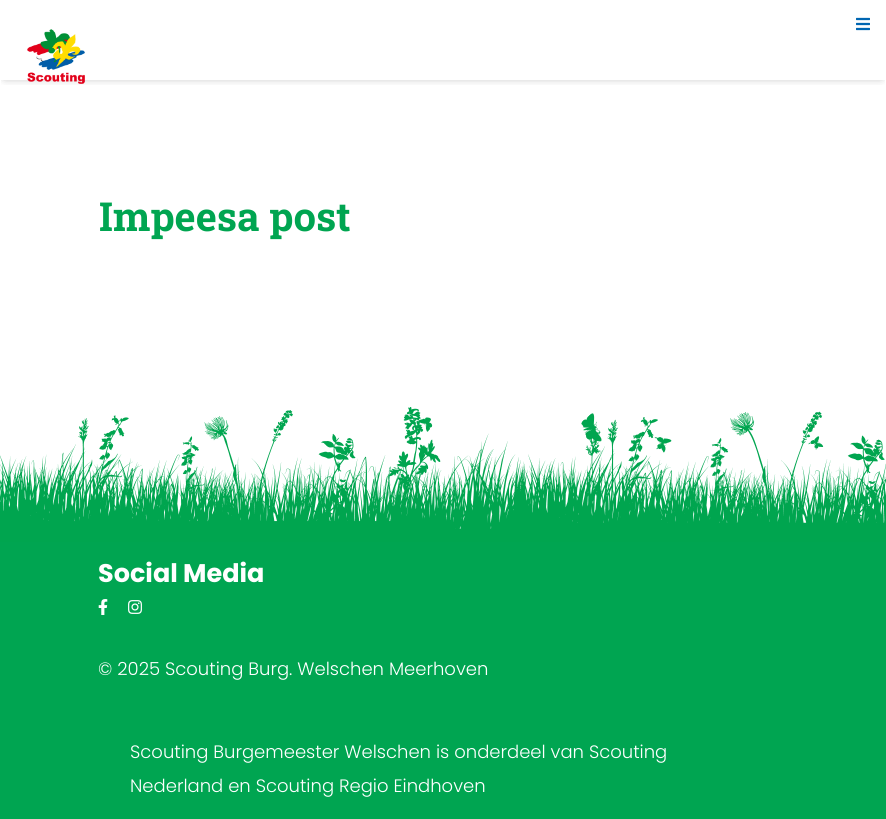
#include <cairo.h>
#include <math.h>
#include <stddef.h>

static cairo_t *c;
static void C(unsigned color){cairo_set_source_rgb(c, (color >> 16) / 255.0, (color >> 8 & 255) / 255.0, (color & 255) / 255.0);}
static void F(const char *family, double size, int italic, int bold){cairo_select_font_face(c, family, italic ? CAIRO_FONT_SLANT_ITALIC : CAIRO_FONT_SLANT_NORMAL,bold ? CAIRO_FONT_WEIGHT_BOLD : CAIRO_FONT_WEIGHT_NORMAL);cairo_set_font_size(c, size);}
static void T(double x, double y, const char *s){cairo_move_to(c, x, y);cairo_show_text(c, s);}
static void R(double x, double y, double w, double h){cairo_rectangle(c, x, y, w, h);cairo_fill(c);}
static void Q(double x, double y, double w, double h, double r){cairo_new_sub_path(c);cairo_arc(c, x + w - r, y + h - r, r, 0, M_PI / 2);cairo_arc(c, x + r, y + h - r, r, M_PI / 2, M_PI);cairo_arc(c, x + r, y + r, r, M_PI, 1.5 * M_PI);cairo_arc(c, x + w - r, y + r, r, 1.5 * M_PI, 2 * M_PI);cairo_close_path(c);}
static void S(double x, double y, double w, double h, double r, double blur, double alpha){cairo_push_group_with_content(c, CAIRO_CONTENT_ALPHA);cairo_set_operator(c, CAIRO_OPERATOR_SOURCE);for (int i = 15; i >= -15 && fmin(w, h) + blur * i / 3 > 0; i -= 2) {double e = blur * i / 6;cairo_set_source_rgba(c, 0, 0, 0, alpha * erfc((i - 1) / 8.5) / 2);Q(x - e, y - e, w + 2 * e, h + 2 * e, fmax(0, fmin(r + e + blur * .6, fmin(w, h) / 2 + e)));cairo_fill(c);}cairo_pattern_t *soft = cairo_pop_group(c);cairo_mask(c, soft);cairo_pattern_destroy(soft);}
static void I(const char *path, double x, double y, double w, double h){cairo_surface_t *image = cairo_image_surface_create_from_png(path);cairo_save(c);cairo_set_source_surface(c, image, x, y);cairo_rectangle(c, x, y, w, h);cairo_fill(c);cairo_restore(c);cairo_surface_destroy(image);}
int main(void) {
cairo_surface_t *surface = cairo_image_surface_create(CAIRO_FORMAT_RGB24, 886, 819);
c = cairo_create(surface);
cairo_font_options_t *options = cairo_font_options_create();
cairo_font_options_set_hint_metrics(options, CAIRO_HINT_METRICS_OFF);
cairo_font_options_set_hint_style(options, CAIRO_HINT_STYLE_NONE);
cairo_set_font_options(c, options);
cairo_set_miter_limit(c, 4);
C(0xffffff);
cairo_paint(c);
cairo_save(c);
cairo_rectangle(c,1,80,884,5);
cairo_clip(c);
C(0x000000);
S(5,6,876,70,0,5,.5);
cairo_restore(c);
I("1.png",856,17,14,14);
I("2.png",27,29,58,55);
F("Roboto Slab",40,0,1);
C(0x00a551);
T(99,231,"Impeesa post");
R(0,542,886,277);
I("3.png",0,407,886,135);
F("Poppins",25.5,0,1);
C(0xffffff);
T(98,582,"Social Media");
I("4.png",98,599,10,16);
I("5.png",128,600,14,14);
F("Poppins Light",18,0,0);
T(98,675,"© 2025 Scouting Burg. Welschen Meerhoven");
T(130,758,"Scouting Burgemeester Welschen is onderdeel van Scouting");
T(130,792,"Nederland en Scouting Regio Eindhoven");
cairo_surface_write_to_png(surface, "o.png");
cairo_font_options_destroy(options);
cairo_destroy(c);
cairo_surface_destroy(surface);
return 0;
}
